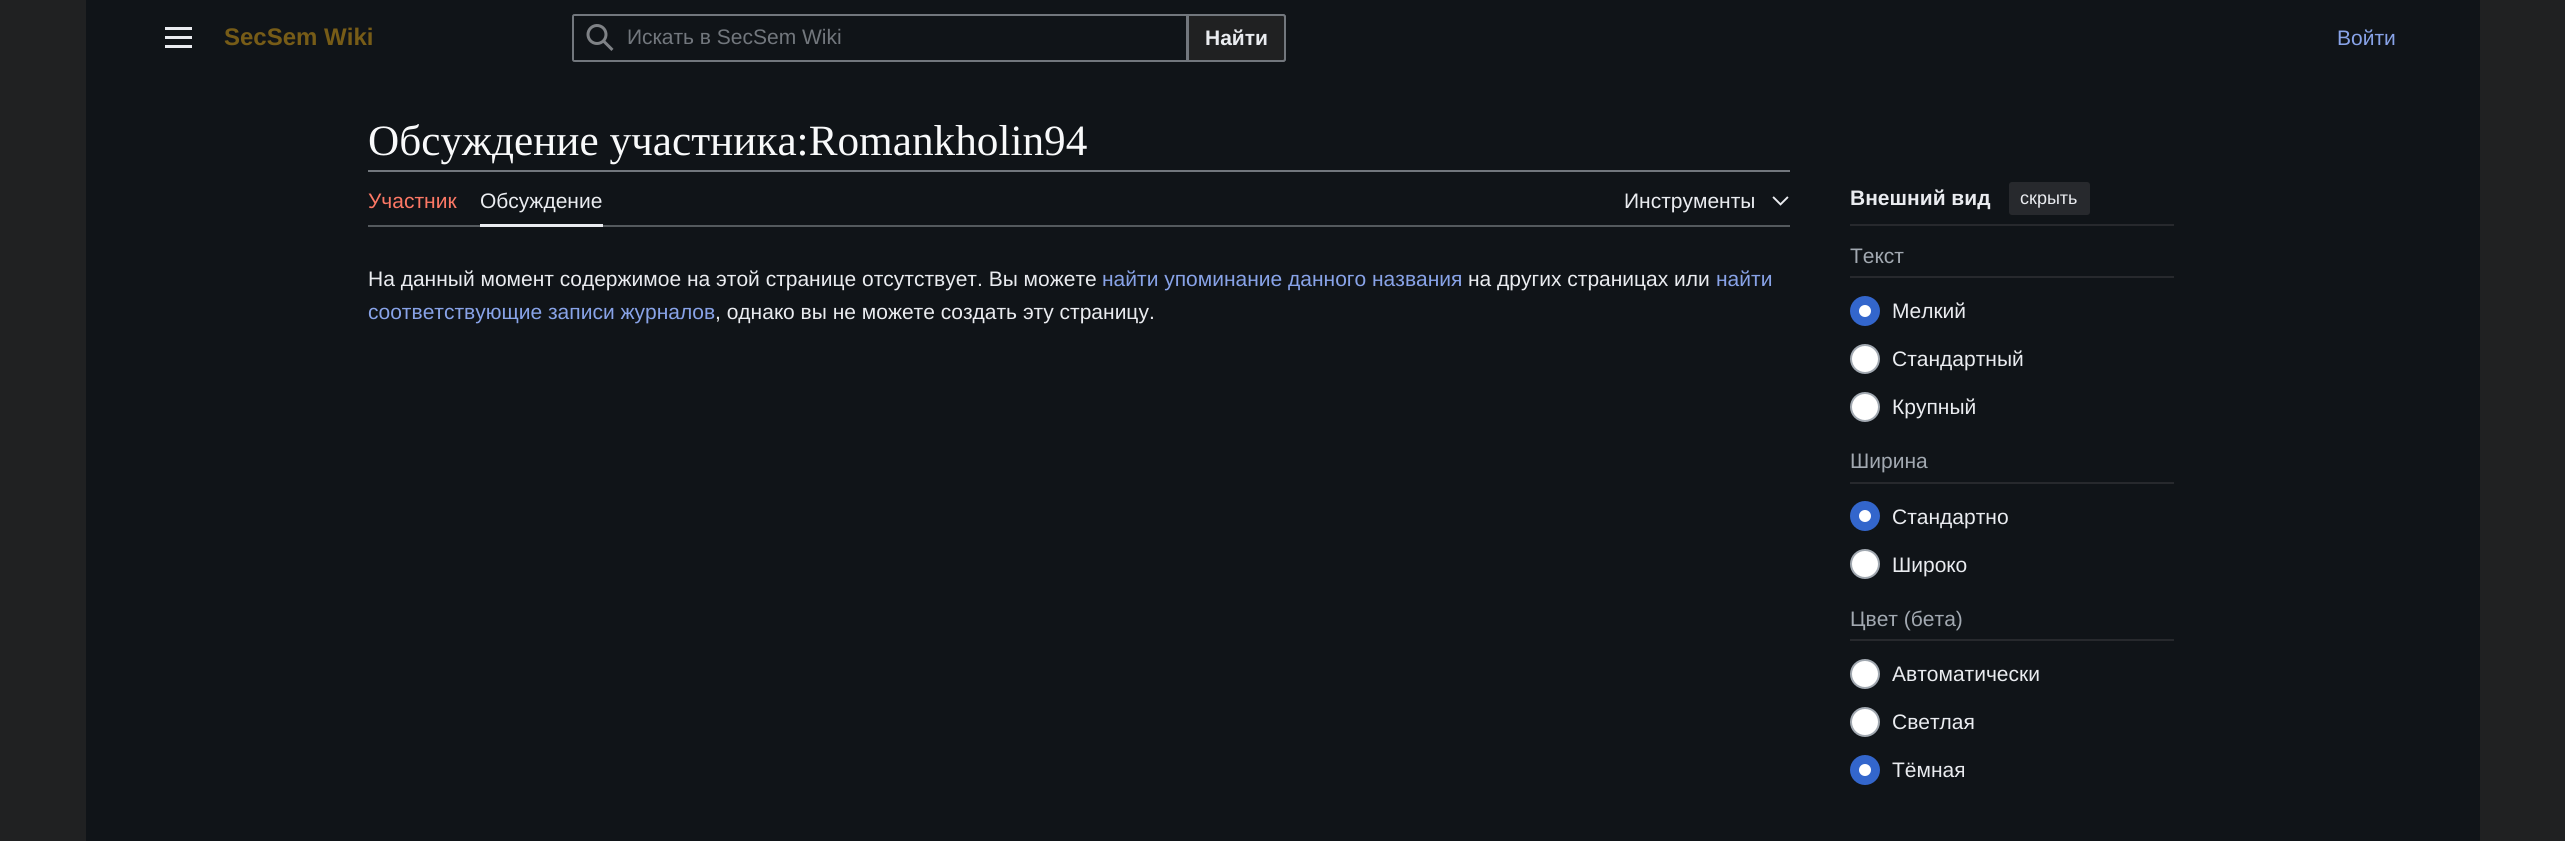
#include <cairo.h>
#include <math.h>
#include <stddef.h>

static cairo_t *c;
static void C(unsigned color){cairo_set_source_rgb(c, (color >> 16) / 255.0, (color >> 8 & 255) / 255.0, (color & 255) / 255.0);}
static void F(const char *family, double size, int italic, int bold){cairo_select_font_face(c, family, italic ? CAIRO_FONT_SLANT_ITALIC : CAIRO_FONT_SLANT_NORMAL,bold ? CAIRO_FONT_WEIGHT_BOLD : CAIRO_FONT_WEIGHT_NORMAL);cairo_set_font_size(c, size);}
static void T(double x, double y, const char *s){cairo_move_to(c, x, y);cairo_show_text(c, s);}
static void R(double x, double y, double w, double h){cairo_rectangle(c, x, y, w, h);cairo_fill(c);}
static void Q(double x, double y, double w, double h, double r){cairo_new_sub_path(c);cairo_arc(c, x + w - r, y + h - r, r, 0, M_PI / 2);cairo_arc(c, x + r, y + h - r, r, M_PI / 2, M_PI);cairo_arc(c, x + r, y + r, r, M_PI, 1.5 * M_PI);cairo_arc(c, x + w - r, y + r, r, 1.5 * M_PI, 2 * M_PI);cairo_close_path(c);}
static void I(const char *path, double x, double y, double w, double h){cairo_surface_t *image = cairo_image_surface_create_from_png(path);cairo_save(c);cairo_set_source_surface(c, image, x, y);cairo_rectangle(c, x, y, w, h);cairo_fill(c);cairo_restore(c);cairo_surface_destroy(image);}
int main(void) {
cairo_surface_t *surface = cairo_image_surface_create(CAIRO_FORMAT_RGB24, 2565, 841);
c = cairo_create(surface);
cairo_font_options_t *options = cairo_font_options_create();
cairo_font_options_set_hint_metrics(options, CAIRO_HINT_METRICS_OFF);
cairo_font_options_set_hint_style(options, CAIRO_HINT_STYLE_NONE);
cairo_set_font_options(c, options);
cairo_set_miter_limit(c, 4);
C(0x202122);
cairo_paint(c);
C(0x101418);
R(86,0,2394,841);
I("1.png",165,27,27,21);
F("Liberation Sans",24,0,1);
C(0x775c17);
T(224,45,"SecSem Wiki");
Q(573,15,712,46,2);
C(0x72777d);
cairo_stroke(c);
C(0x202122);
cairo_new_path(c);
cairo_move_to(c,1188,15);
cairo_line_to(c,1283,15);
cairo_curve_to(c,1284,15,1285,16,1285,17);
cairo_line_to(c,1285,59);
cairo_curve_to(c,1285,60,1284,61,1283,61);
cairo_line_to(c,1188,61);
cairo_close_path(c);
cairo_fill_preserve(c);
C(0x72777d);
cairo_stroke(c);
C(0x101418);
cairo_new_path(c);
cairo_move_to(c,575,14);
cairo_line_to(c,1188,14);
cairo_line_to(c,1188,62);
cairo_line_to(c,575,62);
cairo_curve_to(c,573.5,62,572,60.5,572,59);
cairo_line_to(c,572,17);
cairo_curve_to(c,572,15.5,573.5,14,575,14);
cairo_close_path(c);
cairo_fill(c);
C(0x72777d);
cairo_set_fill_rule(c,CAIRO_FILL_RULE_EVEN_ODD);
cairo_new_path(c);
cairo_move_to(c,575,14);
cairo_curve_to(c,573,14,572,15,572,17);
cairo_line_to(c,572,59);
cairo_curve_to(c,572,61,573,62,575,62);
cairo_line_to(c,1188,62);
cairo_line_to(c,1188,14);
cairo_close_path(c);
cairo_move_to(c,574,16);
cairo_line_to(c,574,60);
cairo_line_to(c,1186,60);
cairo_line_to(c,1186,16);
cairo_close_path(c);
cairo_fill(c);
I("2.png",586,24,28,27);
F("Liberation Sans",21,0,0);
T(627,44,"Искать в SecSem Wiki");
F("Liberation Sans",21,0,1);
C(0xeaecf0);
T(1205,45,"Найти");
F("Liberation Sans",21,0,0);
C(0x88a3e8);
T(2337,45,"Войти");
F("Liberation Serif",43.25,0,0);
C(0xf8f9fa);
T(368,155,"Обсуждение участника:Romankholin94");
C(0x72777d);
R(368,170,1422,2);
C(0x54595d);
cairo_set_fill_rule(c,CAIRO_FILL_RULE_WINDING);
cairo_new_path(c);
cairo_move_to(c,368,225);
cairo_line_to(c,368,227);
cairo_line_to(c,1790,227);
cairo_line_to(c,1790,173);
cairo_line_to(c,1790,225);
cairo_close_path(c);
cairo_fill(c);
F("Liberation Sans",21,0,0);
C(0xfd7865);
T(368,208,"Участник");
C(0xeaecf0);
R(480,224,123,3);
T(480,208,"Обсуждение");
T(1624,208,"Инструменты");
I("3.png",1772,196,17,10);
C(0x27292d);
R(1850,224,324,2);
F("Liberation Sans",21,0,1);
C(0xeaecf0);
T(1850,205,"Внешний вид");
C(0x27292d);
Q(2009,182,81,33,3);
cairo_fill(c);
F("Liberation Sans",18,0,0);
C(0xeaecf0);
T(2020,204,"скрыть");
C(0x27292d);
R(1850,276,324,2);
F("Liberation Sans",21,0,0);
C(0xa2a9b1);
T(1850,263,"Текст");
C(0xffffff);
cairo_new_path(c);
cairo_arc(c,1865,311,10.5,0,2 * M_PI);
cairo_fill_preserve(c);
C(0x3366cc);
cairo_set_line_width(c,9);
cairo_stroke(c);
C(0xeaecf0);
T(1892,318,"Мелкий");
C(0xffffff);
cairo_new_path(c);
cairo_arc(c,1865,359,14,0,2 * M_PI);
cairo_fill_preserve(c);
C(0xa2a9b1);
cairo_set_line_width(c,2);
cairo_stroke(c);
C(0xeaecf0);
T(1892,366,"Стандартный");
C(0xffffff);
cairo_new_path(c);
cairo_arc(c,1865,407,14,0,2 * M_PI);
cairo_fill_preserve(c);
C(0xa2a9b1);
cairo_stroke(c);
C(0xeaecf0);
T(1892,414,"Крупный");
C(0x27292d);
R(1850,482,324,2);
C(0xa2a9b1);
T(1850,468,"Ширина");
C(0xffffff);
cairo_new_path(c);
cairo_arc(c,1865,516,10.5,0,2 * M_PI);
cairo_fill_preserve(c);
C(0x3366cc);
cairo_set_line_width(c,9);
cairo_stroke(c);
C(0xeaecf0);
T(1892,524,"Стандартно");
C(0xffffff);
cairo_new_path(c);
cairo_arc(c,1865,564,14,0,2 * M_PI);
cairo_fill_preserve(c);
C(0xa2a9b1);
cairo_set_line_width(c,2);
cairo_stroke(c);
C(0xeaecf0);
T(1892,572,"Широко");
C(0x27292d);
R(1850,639,324,2);
C(0xa2a9b1);
T(1850,626,"Цвет (бета)");
C(0xffffff);
cairo_new_path(c);
cairo_arc(c,1865,674,14,0,2 * M_PI);
cairo_fill_preserve(c);
C(0xa2a9b1);
cairo_stroke(c);
C(0xeaecf0);
T(1892,681,"Автоматически");
C(0xffffff);
cairo_new_path(c);
cairo_arc(c,1865,722,14,0,2 * M_PI);
cairo_fill_preserve(c);
C(0xa2a9b1);
cairo_stroke(c);
C(0xeaecf0);
T(1892,729,"Светлая");
C(0xffffff);
cairo_new_path(c);
cairo_arc(c,1865,770,10.5,0,2 * M_PI);
cairo_fill_preserve(c);
C(0x3366cc);
cairo_set_line_width(c,9);
cairo_stroke(c);
C(0xeaecf0);
T(1892,777,"Тёмная");
T(368,286,"На данный момент содержимое на этой странице отсутствует. Вы можете");
C(0x88a3e8);
T(1102,286,"найти упоминание данного названия");
C(0xeaecf0);
T(1468,286,"на других страницах или");
C(0x88a3e8);
T(1716,286,"найти");
T(368,319,"соответствующие записи журналов");
C(0xeaecf0);
T(715,319,", однако вы не можете создать эту страницу.");
cairo_surface_write_to_png(surface, "o.png");
cairo_font_options_destroy(options);
cairo_destroy(c);
cairo_surface_destroy(surface);
return 0;
}
